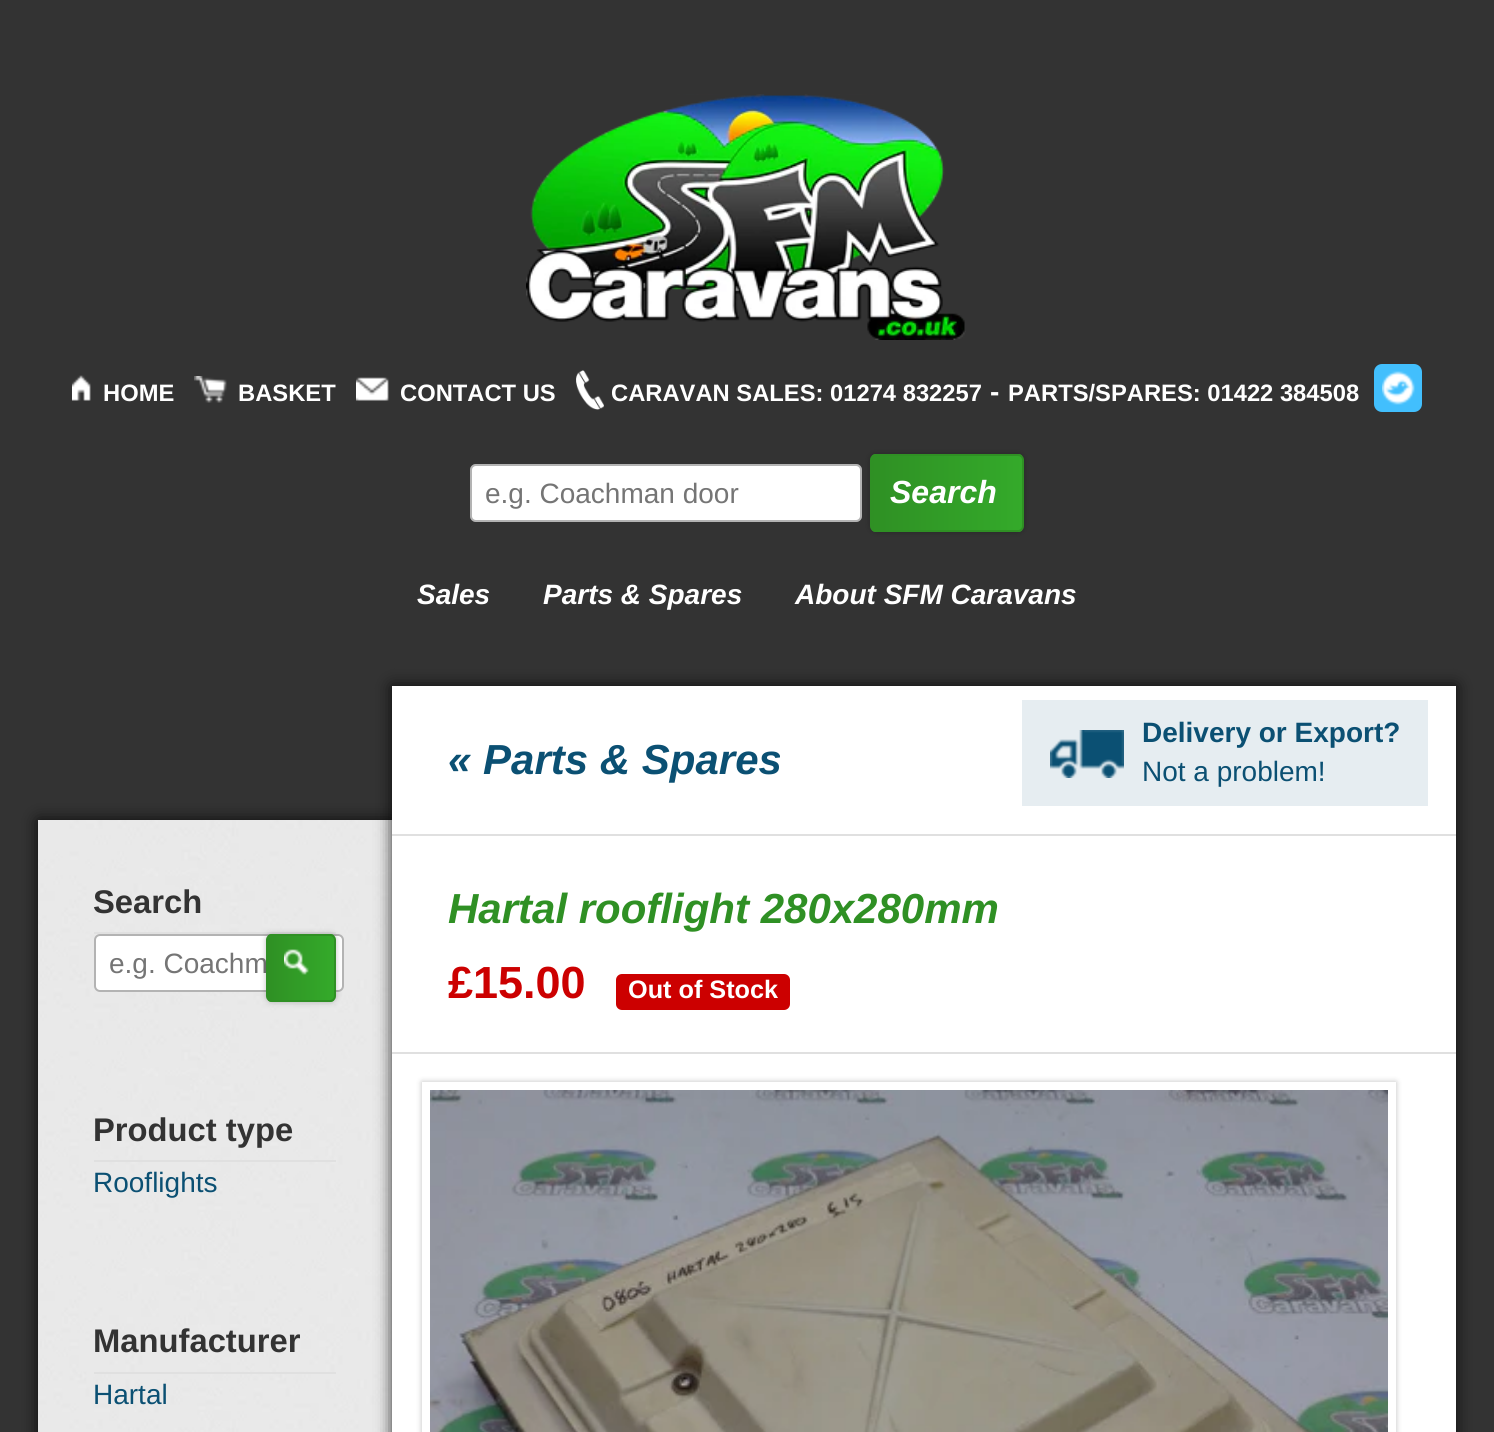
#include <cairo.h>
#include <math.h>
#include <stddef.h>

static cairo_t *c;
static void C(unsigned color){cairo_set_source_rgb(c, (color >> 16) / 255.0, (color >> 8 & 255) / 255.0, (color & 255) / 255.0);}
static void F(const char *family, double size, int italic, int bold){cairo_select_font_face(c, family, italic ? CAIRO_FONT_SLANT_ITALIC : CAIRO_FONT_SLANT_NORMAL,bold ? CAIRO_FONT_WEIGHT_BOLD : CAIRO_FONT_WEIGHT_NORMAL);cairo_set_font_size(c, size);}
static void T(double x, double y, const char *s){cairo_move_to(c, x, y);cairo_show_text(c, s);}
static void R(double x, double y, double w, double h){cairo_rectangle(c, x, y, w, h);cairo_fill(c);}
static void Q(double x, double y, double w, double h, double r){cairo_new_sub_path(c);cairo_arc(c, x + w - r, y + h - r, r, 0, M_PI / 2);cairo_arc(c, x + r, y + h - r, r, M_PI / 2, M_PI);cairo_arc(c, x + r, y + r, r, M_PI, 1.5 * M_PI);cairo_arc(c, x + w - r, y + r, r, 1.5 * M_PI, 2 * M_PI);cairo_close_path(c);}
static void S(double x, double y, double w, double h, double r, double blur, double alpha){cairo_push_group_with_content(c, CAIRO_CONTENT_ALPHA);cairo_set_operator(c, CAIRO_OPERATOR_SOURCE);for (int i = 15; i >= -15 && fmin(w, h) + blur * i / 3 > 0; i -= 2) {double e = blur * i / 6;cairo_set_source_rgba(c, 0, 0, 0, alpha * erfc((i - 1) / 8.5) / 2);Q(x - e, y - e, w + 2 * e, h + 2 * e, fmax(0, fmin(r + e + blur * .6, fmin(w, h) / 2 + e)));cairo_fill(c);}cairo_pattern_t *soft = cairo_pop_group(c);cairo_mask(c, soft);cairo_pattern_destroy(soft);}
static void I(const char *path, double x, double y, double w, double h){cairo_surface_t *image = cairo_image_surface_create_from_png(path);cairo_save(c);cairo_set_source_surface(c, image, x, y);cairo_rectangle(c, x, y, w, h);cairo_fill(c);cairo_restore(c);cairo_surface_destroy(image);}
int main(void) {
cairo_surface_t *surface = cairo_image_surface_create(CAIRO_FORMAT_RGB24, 1494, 1432);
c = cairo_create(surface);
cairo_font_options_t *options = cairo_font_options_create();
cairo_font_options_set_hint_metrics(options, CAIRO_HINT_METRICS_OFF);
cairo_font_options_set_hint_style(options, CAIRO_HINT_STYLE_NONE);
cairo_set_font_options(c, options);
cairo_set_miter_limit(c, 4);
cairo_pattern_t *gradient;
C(0x333333);
cairo_paint(c);
I("1.png",526,94,440,246);
I("2.png",72,375,19,26);
F("Liberation Sans",23.75,0,1);
C(0xffffff);
T(103,401,"HOME");
I("3.png",194,376,33,27);
T(238,401,"BASKET");
I("4.png",356,377,33,24);
T(400,401,"CONTACT US");
I("5.png",576,370,28,40);
T(611,401,"CARAVAN SALES: 01274 832257");
F("Liberation Sans",28,0,1);
T(990,401,"-");
F("Liberation Sans",23.75,0,1);
T(1008,401,"PARTS/SPARES: 01422 384508");
C(0x42bffd);
Q(1374,364,48,48,8);
cairo_fill(c);
I("6.png",1382,371,33,34);
C(0xffffff);
Q(470,464,392,58,6);
cairo_fill(c);
Q(471,465,390,56,5);
cairo_set_source_rgba(c,0,0,0,0.3);
cairo_stroke(c);
F("Liberation Sans",28,0,0);
C(0x757575);
T(485,503,"e.g. Coachman door");
C(0x000000);
S(870,454,154,78,6,3,.25);
cairo_save(c);
Q(870,454,154,78,6);
cairo_clip(c);
gradient = cairo_pattern_create_linear(872,493,1022,493);
cairo_pattern_add_color_stop_rgba(gradient,0,0.184,0.565,0.141,1);
cairo_pattern_add_color_stop_rgba(gradient,1,0.204,0.667,0.165,1);
cairo_set_source(c,gradient);
cairo_pattern_destroy(gradient);
R(872,454,150,78);
cairo_restore(c);
Q(871,455,152,76,5);
C(0x2f9024);
cairo_stroke(c);
F("Liberation Sans",32,1,1);
C(0xffffff);
T(890,503,"Search");
F("Liberation Sans",28,1,1);
T(417,604,"Sales");
T(543,604,"Parts & Spares");
T(795,604,"About SFM Caravans");
C(0x000000);
S(38,820,354,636,0,8,.8);
I("9.png",38,820,354,612);
S(392,686,1064,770,0,8,.8);
C(0xffffff);
R(392,686,1064,746);
C(0xe0e0e0);
R(392,834,1064,2);
F("Liberation Sans",42,1,1);
C(0x0b5073);
T(448,774,"« Parts & Spares");
C(0xe6edf1);
R(1022,700,406,106);
I("7.png",1050,730,74,48);
F("Liberation Sans",28,0,1);
C(0x0b5073);
T(1142,742,"Delivery or Export?");
F("Liberation Sans",28,0,0);
T(1142,781,"Not a problem!");
C(0xe0e0e0);
R(392,1052,1064,2);
F("Liberation Sans",42,1,1);
C(0x2f9024);
T(448,923,"Hartal rooflight 280x280mm");
F("Liberation Sans",45,0,1);
C(0xcc0000);
T(448,998,"£15.00");
Q(616,974,174,36,6);
cairo_fill(c);
F("Liberation Sans",25.25,0,1);
C(0xffffff);
T(628,998,"Out of Stock");
cairo_save(c);
cairo_set_fill_rule(c,CAIRO_FILL_RULE_EVEN_ODD);
cairo_new_path(c);
cairo_move_to(c,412,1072);
cairo_line_to(c,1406,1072);
cairo_line_to(c,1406,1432);
cairo_line_to(c,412,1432);
cairo_close_path(c);
cairo_move_to(c,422,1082);
cairo_line_to(c,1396,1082);
cairo_line_to(c,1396,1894);
cairo_line_to(c,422,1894);
cairo_close_path(c);
cairo_clip(c);
C(0x000000);
S(422,1082,974,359,0,3,.25);
cairo_restore(c);
I("8.png",430,1090,958,342);
C(0xe0e0e0);
R(94,932,242,2);
F("Liberation Sans",32.75,0,1);
C(0x333333);
T(93,913,"Search");
C(0xffffff);
Q(94,934,250,58,6);
cairo_fill(c);
Q(95,935,248,56,5);
cairo_set_source_rgba(c,0,0,0,0.3);
cairo_stroke(c);
F("Liberation Sans",28,0,0);
C(0x757575);
T(109,973,"e.g. Coachm");
C(0x000000);
S(266,934,70,68,6,3,.25);
cairo_save(c);
Q(266,934,70,68,6);
cairo_clip(c);
gradient = cairo_pattern_create_linear(268,968,334,968);
cairo_pattern_add_color_stop_rgba(gradient,0,0.184,0.565,0.141,1);
cairo_pattern_add_color_stop_rgba(gradient,1,0.204,0.667,0.165,1);
cairo_set_source(c,gradient);
cairo_pattern_destroy(gradient);
R(268,934,66,68);
cairo_restore(c);
Q(267,935,68,66,5);
C(0x2f9024);
cairo_stroke(c);
I("10.png",284,949,25,26);
C(0xe0e0e0);
R(94,1160,242,2);
F("Liberation Sans",32.75,0,1);
C(0x333333);
T(93,1141,"Product type");
F("Liberation Sans",28,0,0);
C(0x0b5073);
T(93,1192,"Rooflights");
C(0xe0e0e0);
R(94,1372,242,2);
F("Liberation Sans",32.75,0,1);
C(0x333333);
T(93,1352,"Manufacturer");
F("Liberation Sans",28,0,0);
C(0x0b5073);
T(93,1404,"Hartal");
cairo_surface_write_to_png(surface, "o.png");
cairo_font_options_destroy(options);
cairo_destroy(c);
cairo_surface_destroy(surface);
return 0;
}
